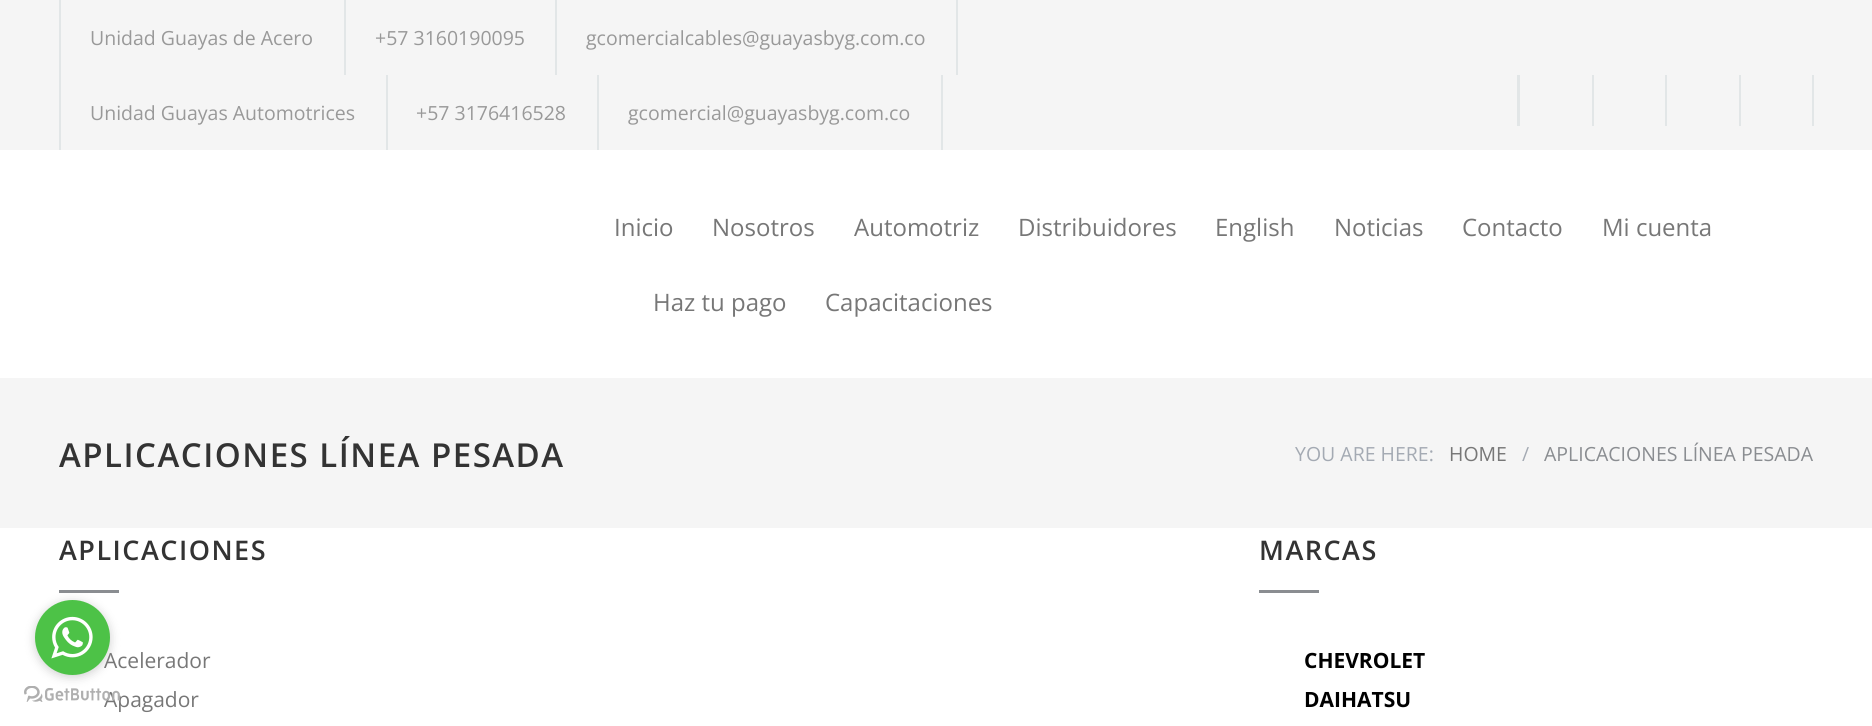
#include <cairo.h>
#include <math.h>
#include <stddef.h>

static cairo_t *c;
static void C(unsigned color){cairo_set_source_rgb(c, (color >> 16) / 255.0, (color >> 8 & 255) / 255.0, (color & 255) / 255.0);}
static void F(const char *family, double size, int italic, int bold){cairo_select_font_face(c, family, italic ? CAIRO_FONT_SLANT_ITALIC : CAIRO_FONT_SLANT_NORMAL,bold ? CAIRO_FONT_WEIGHT_BOLD : CAIRO_FONT_WEIGHT_NORMAL);cairo_set_font_size(c, size);}
static void T(double x, double y, const char *s){cairo_move_to(c, x, y);cairo_show_text(c, s);}
static void L(double x, double y, const char *s, double letter, double word){cairo_move_to(c, x, y);while (*s) {char ch[5] = {0};int n = 0;do ch[n++] = *s++; while ((*s & 0xC0) == 0x80);cairo_show_text(c, ch);cairo_rel_move_to(c, letter + word * (*ch == ' '), 0);}}
static void R(double x, double y, double w, double h){cairo_rectangle(c, x, y, w, h);cairo_fill(c);}
static void Q(double x, double y, double w, double h, double r){cairo_new_sub_path(c);cairo_arc(c, x + w - r, y + h - r, r, 0, M_PI / 2);cairo_arc(c, x + r, y + h - r, r, M_PI / 2, M_PI);cairo_arc(c, x + r, y + r, r, M_PI, 1.5 * M_PI);cairo_arc(c, x + w - r, y + r, r, 1.5 * M_PI, 2 * M_PI);cairo_close_path(c);}
static void S(double x, double y, double w, double h, double r, double blur, double alpha){cairo_push_group_with_content(c, CAIRO_CONTENT_ALPHA);cairo_set_operator(c, CAIRO_OPERATOR_SOURCE);for (int i = 15; i >= -15 && fmin(w, h) + blur * i / 3 > 0; i -= 2) {double e = blur * i / 6;cairo_set_source_rgba(c, 0, 0, 0, alpha * erfc((i - 1) / 8.5) / 2);Q(x - e, y - e, w + 2 * e, h + 2 * e, fmax(0, fmin(r + e + blur * .6, fmin(w, h) / 2 + e)));cairo_fill(c);}cairo_pattern_t *soft = cairo_pop_group(c);cairo_mask(c, soft);cairo_pattern_destroy(soft);}
static void I(const char *path, double x, double y, double w, double h){cairo_surface_t *image = cairo_image_surface_create_from_png(path);cairo_save(c);cairo_set_source_surface(c, image, x, y);cairo_rectangle(c, x, y, w, h);cairo_fill(c);cairo_restore(c);cairo_surface_destroy(image);}
int main(void) {
cairo_surface_t *surface = cairo_image_surface_create(CAIRO_FORMAT_RGB24, 1872, 726);
c = cairo_create(surface);
cairo_font_options_t *options = cairo_font_options_create();
cairo_font_options_set_hint_metrics(options, CAIRO_HINT_METRICS_OFF);
cairo_font_options_set_hint_style(options, CAIRO_HINT_STYLE_NONE);
cairo_set_font_options(c, options);
cairo_set_miter_limit(c, 4);
C(0xffffff);
cairo_paint(c);
C(0xf5f5f5);
R(0,0,1872,150);
C(0xe2e6e7);
R(344,0,2,75);
R(59,0,2,150);
F("Open Sans",19.5,0,0);
C(0x999999);
T(90,45,"Unidad Guayas de Acero");
C(0xe2e6e7);
R(555,0,2,75);
C(0x999999);
T(375,45,"+57 3160190095");
C(0xe2e6e7);
R(956,0,2,75);
C(0x999999);
T(586,45,"gcomercialcables@guayasbyg.com.co");
C(0xe2e6e7);
R(386,75,2,75);
C(0x999999);
T(90,120,"Unidad Guayas Automotrices");
C(0xe2e6e7);
R(597,75,2,75);
C(0x999999);
T(416,120,"+57 3176416528");
C(0xe2e6e7);
R(941,75,2,75);
C(0x999999);
T(628,120,"gcomercial@guayasbyg.com.co");
C(0xe2e6e7);
R(1592,75,2,51);
R(1517,75,3,51);
R(1665,75,2,51);
R(1739,75,2,51);
R(1812,75,2,51);
F("Open Sans",24,0,0);
C(0x777777);
T(614,236,"Inicio");
T(712,236,"Nosotros");
T(854,236,"Automotriz");
T(1018,236,"Distribuidores");
T(1215,236,"English");
T(1334,236,"Noticias");
T(1462,236,"Contacto");
T(1602,236,"Mi cuenta");
T(653,311,"Haz tu pago");
T(825,311,"Capacitaciones");
C(0xf5f5f5);
R(0,378,1872,150);
F("Open Sans SemiBold",33,0,0);
C(0x333333);
L(59,467,"APLICACIONES LÍNEA PESADA",1.5,0);
F("Open Sans",19.5,0,0);
C(0xa4aab3);
T(1295,461,"YOU ARE HERE:");
C(0x777777);
T(1449,461,"HOME");
C(0xa4aab3);
T(1522,461,"/");
C(0x8a8d91);
T(1544,461,"APLICACIONES LÍNEA PESADA");
F("Open Sans SemiBold",27,0,0);
C(0x333333);
L(59,560,"APLICACIONES",1.5,0);
C(0x8a8d91);
R(59,590,60,3);
F("Open Sans",21,0,0);
C(0x777777);
T(104,668,"Acelerador");
T(104,707,"Apagador");
F("Open Sans SemiBold",27,0,0);
C(0x333333);
L(1259,560,"MARCAS",1.5,0);
C(0x8a8d91);
R(1259,590,60,3);
F("Open Sans",21,0,1);
C(0x000000);
T(1304,668,"CHEVROLET");
T(1304,707,"DAIHATSU");
I("2.png",24,686,96,16);
C(0x888888);
S(35,602,75,75,37.5,5,.4);
C(0x4dc247);
cairo_arc(c,72.5,637.5,37.5,0,2 * M_PI);
cairo_fill(c);
I("1.png",51,616,42,43);
cairo_surface_write_to_png(surface, "o.png");
cairo_font_options_destroy(options);
cairo_destroy(c);
cairo_surface_destroy(surface);
return 0;
}
